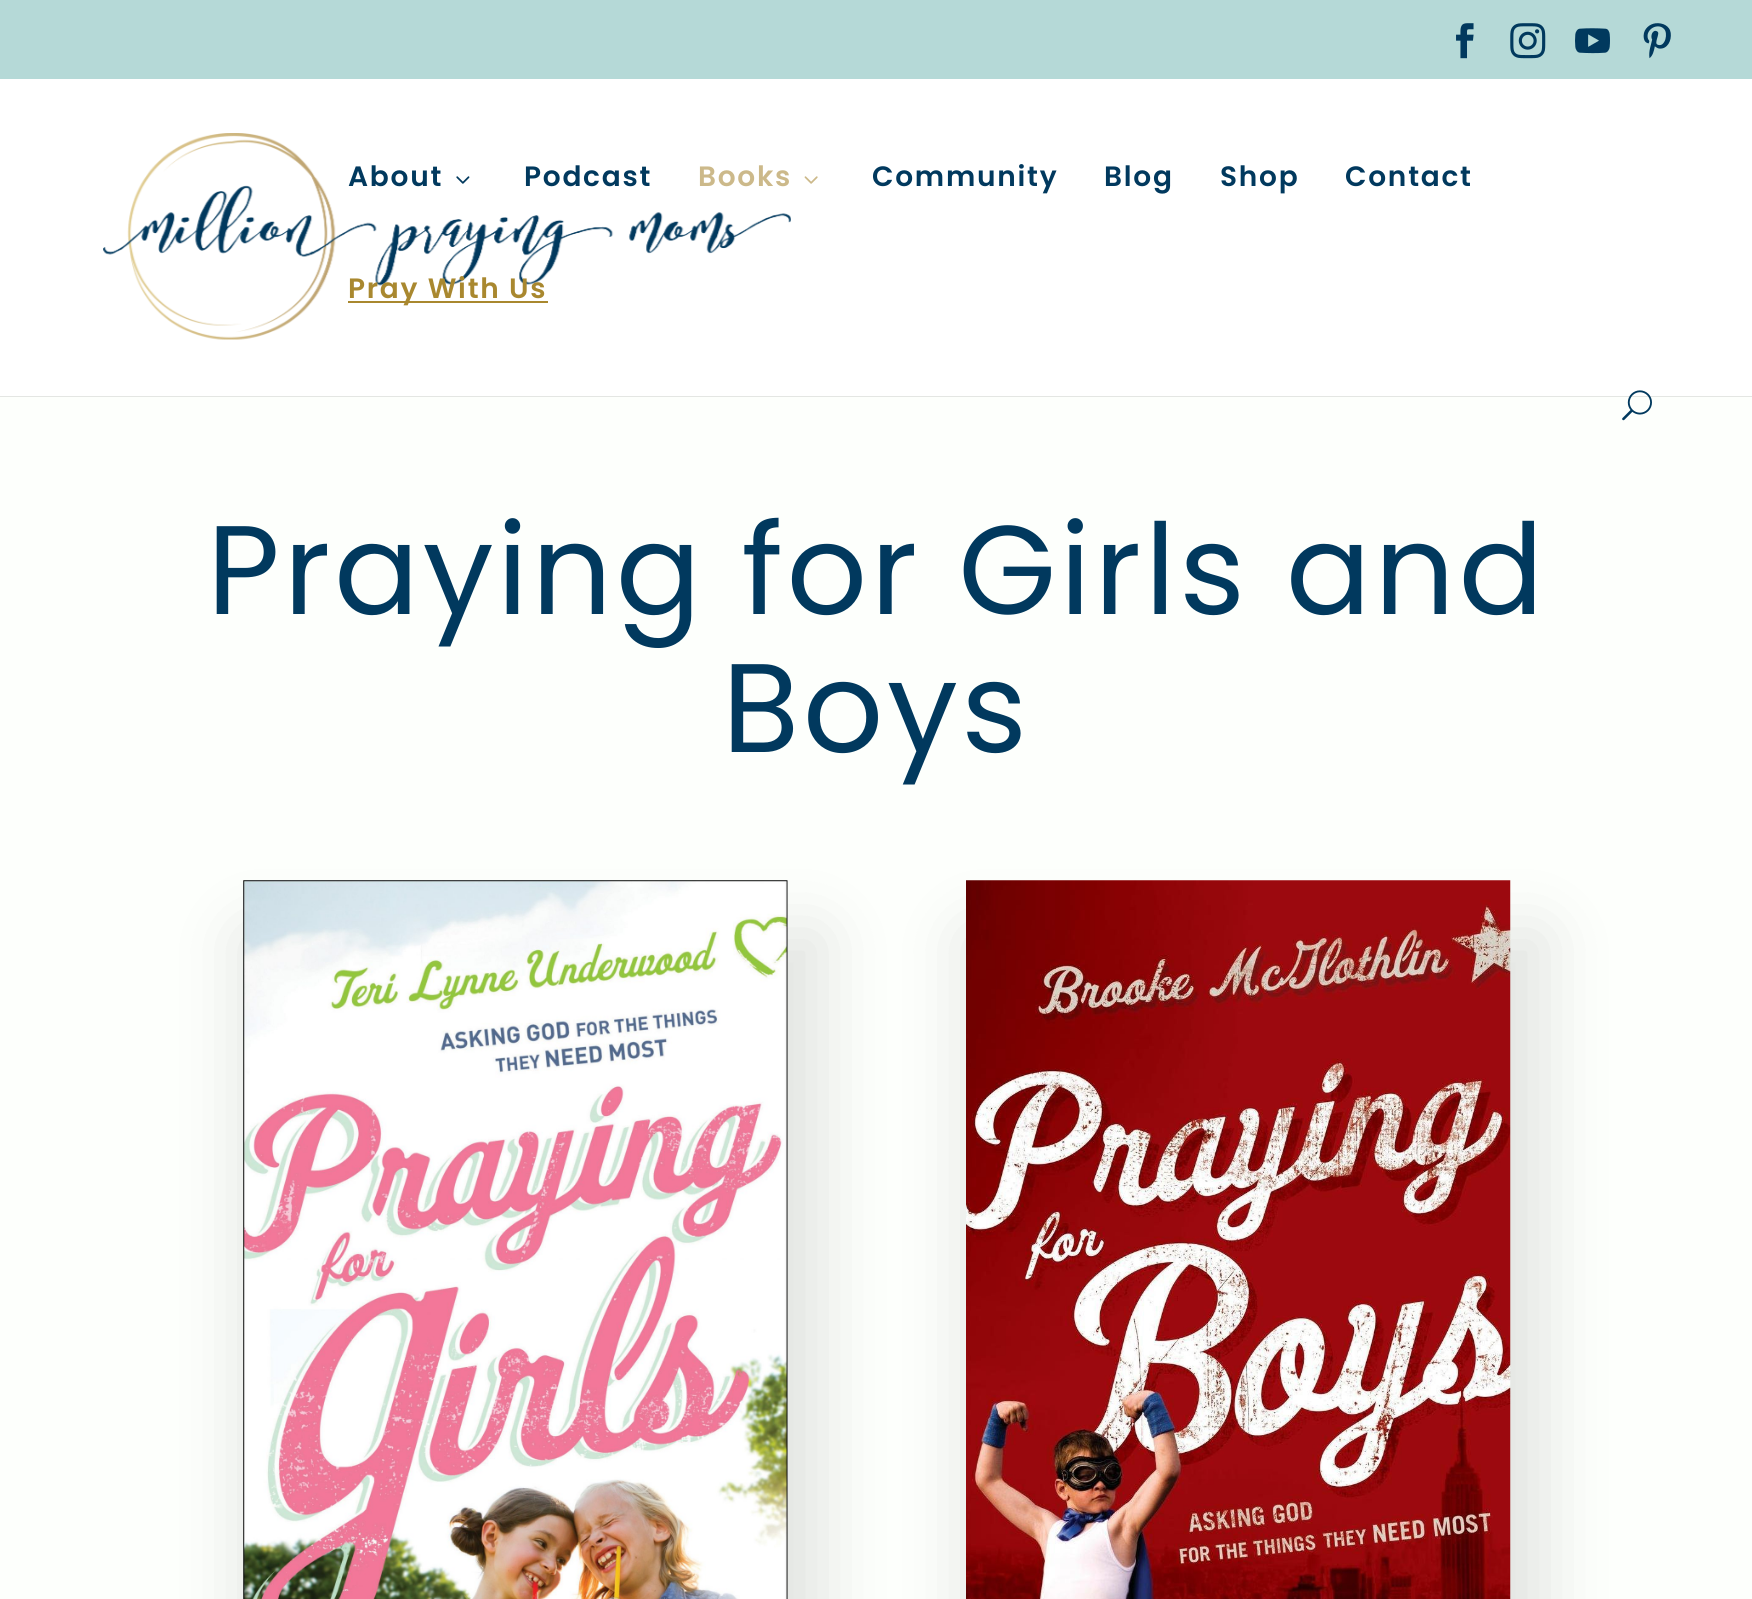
#include <cairo.h>
#include <math.h>
#include <stddef.h>

static cairo_t *c;
static void C(unsigned color){cairo_set_source_rgb(c, (color >> 16) / 255.0, (color >> 8 & 255) / 255.0, (color & 255) / 255.0);}
static void F(const char *family, double size, int italic, int bold){cairo_select_font_face(c, family, italic ? CAIRO_FONT_SLANT_ITALIC : CAIRO_FONT_SLANT_NORMAL,bold ? CAIRO_FONT_WEIGHT_BOLD : CAIRO_FONT_WEIGHT_NORMAL);cairo_set_font_size(c, size);}
static void L(double x, double y, const char *s, double letter, double word){cairo_move_to(c, x, y);while (*s) {char ch[5] = {0};int n = 0;do ch[n++] = *s++; while ((*s & 0xC0) == 0x80);cairo_show_text(c, ch);cairo_rel_move_to(c, letter + word * (*ch == ' '), 0);}}
static void R(double x, double y, double w, double h){cairo_rectangle(c, x, y, w, h);cairo_fill(c);}
static void Q(double x, double y, double w, double h, double r){cairo_new_sub_path(c);cairo_arc(c, x + w - r, y + h - r, r, 0, M_PI / 2);cairo_arc(c, x + r, y + h - r, r, M_PI / 2, M_PI);cairo_arc(c, x + r, y + r, r, M_PI, 1.5 * M_PI);cairo_arc(c, x + w - r, y + r, r, 1.5 * M_PI, 2 * M_PI);cairo_close_path(c);}
static void S(double x, double y, double w, double h, double r, double blur, double alpha){cairo_push_group_with_content(c, CAIRO_CONTENT_ALPHA);cairo_set_operator(c, CAIRO_OPERATOR_SOURCE);for (int i = 15; i >= -15 && fmin(w, h) + blur * i / 3 > 0; i -= 2) {double e = blur * i / 6;cairo_set_source_rgba(c, 0, 0, 0, alpha * erfc((i - 1) / 8.5) / 2);Q(x - e, y - e, w + 2 * e, h + 2 * e, fmax(0, fmin(r + e + blur * .6, fmin(w, h) / 2 + e)));cairo_fill(c);}cairo_pattern_t *soft = cairo_pop_group(c);cairo_mask(c, soft);cairo_pattern_destroy(soft);}
static void I(const char *path, double x, double y, double w, double h){cairo_surface_t *image = cairo_image_surface_create_from_png(path);cairo_save(c);cairo_set_source_surface(c, image, x, y);cairo_rectangle(c, x, y, w, h);cairo_fill(c);cairo_restore(c);cairo_surface_destroy(image);}
int main(void) {
cairo_surface_t *surface = cairo_image_surface_create(CAIRO_FORMAT_RGB24, 1752, 1599);
c = cairo_create(surface);
cairo_font_options_t *options = cairo_font_options_create();
cairo_font_options_set_hint_metrics(options, CAIRO_HINT_METRICS_OFF);
cairo_font_options_set_hint_style(options, CAIRO_HINT_STYLE_NONE);
cairo_set_font_options(c, options);
cairo_set_miter_limit(c, 4);
C(0xffffff);
cairo_paint(c);
C(0xb5d9d7);
R(0,0,1752,79);
I("1.png",1456,23,18,36);
I("2.png",1510,23,36,36);
I("3.png",1575,28,35,26);
I("4.png",1643,23,28,36);
C(0xe4e6e3);
cairo_new_path(c);
cairo_move_to(c,0,396);
cairo_line_to(c,0,397);
cairo_line_to(c,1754,397);
cairo_line_to(c,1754,81);
cairo_line_to(c,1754,396);
cairo_close_path(c);
cairo_fill(c);
I("5.png",103,133,688,207);
F("Poppins SemiBold",28,0,0);
C(0x01395e);
L(348,186,"About",1.75,0);
I("6.png",456,176,14,8);
L(524,186,"Podcast",1.75,0);
C(0xccb98a);
L(698,186,"Books",1.75,0);
I("7.png",804,176,14,8);
C(0x01395e);
L(872,186,"Community",1.75,0);
L(1104,186,"Blog",1.75,0);
L(1220,186,"Shop",1.75,0);
L(1345,186,"Contact",1.75,0);
C(0xa9882f);
R(348,301,200,2);
L(348,298,"Pray With Us",1.75,0);
C(0xfdfffc);
R(0,397,1752,1202);
I("8.png",1622,390,30,31);
F("Poppins",126,0,0);
C(0x01395e);
L(207,614,"Praying for Girls and",3.5,0);
L(722,752,"Boys",3.5,0);
C(0x000000);
S(243,933,580,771,0,35,.11);
I("9.png",243,880,545,719);
S(966,933,579,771,0,35,.11);
I("10.png",966,880,545,719);
cairo_surface_write_to_png(surface, "o.png");
cairo_font_options_destroy(options);
cairo_destroy(c);
cairo_surface_destroy(surface);
return 0;
}
